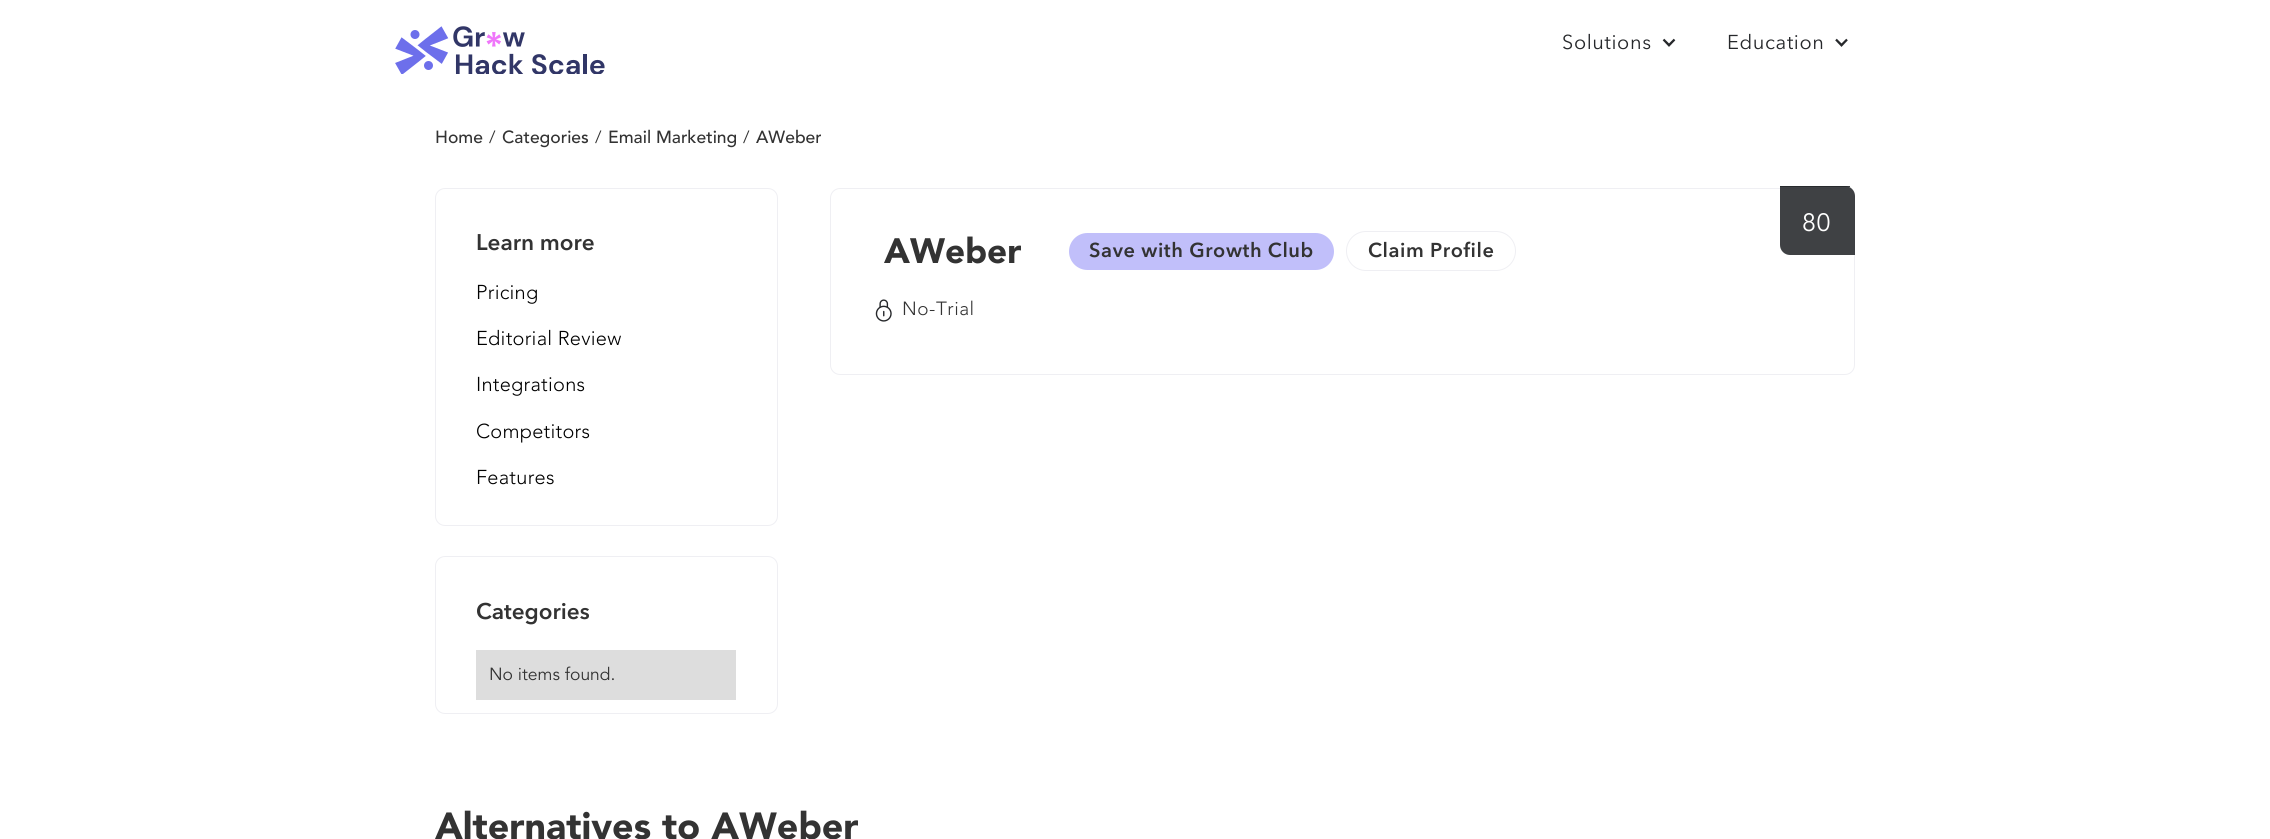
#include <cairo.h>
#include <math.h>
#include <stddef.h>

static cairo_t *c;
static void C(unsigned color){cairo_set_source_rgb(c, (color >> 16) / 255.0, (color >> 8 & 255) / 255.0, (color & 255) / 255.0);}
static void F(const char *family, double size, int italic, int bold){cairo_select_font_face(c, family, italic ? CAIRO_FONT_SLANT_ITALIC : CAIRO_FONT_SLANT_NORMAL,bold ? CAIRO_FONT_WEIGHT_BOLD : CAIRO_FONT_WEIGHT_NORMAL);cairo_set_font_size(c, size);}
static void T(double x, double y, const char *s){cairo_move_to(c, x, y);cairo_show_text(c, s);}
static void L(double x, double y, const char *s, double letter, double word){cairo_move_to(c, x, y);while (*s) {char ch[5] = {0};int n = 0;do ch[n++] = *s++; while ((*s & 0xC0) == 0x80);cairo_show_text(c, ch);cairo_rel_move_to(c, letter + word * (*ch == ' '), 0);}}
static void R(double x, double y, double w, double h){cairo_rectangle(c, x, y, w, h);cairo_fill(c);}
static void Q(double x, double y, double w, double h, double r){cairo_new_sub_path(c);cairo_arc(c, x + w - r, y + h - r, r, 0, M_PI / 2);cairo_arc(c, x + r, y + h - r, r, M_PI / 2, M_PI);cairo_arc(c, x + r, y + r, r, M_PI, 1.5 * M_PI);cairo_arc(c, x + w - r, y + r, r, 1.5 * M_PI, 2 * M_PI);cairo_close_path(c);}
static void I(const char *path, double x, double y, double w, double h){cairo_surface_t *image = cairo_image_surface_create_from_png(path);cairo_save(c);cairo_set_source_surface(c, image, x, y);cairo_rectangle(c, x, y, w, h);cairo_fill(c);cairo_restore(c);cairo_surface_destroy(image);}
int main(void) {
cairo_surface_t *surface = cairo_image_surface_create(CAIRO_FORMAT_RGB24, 2270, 839);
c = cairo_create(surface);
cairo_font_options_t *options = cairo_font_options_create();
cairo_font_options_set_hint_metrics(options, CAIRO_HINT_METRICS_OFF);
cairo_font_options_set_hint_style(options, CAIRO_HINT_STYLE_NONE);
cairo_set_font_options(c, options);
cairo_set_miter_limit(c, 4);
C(0xffffff);
cairo_paint(c);
I("1.png",395,26,210,48);
F("Avenir Next",20,0,0);
C(0x26282b);
L(1562,49,"Solutions",.6,0);
I("2.png",1662,38,14,9);
L(1727,49,"Education",.6,0);
I("3.png",1835,38,13,9);
F("Avenir Medium",17.5,0,0);
C(0x333333);
T(435,143,"Home");
F("Avenir",17.5,0,0);
T(489,143,"/");
F("Avenir Medium",17.5,0,0);
T(502,143,"Categories");
F("Avenir",17.5,0,0);
T(595,143,"/");
F("Avenir Medium",17.5,0,0);
T(608,143,"Email Marketing");
F("Avenir",17.5,0,0);
T(743,143,"/");
F("Avenir Medium",17.5,0,0);
T(756,143,"AWeber");
Q(435.5,188.5,342,337,9.5);
C(0xefeff3);
cairo_set_line_width(c,1);
cairo_stroke(c);
F("Avenir Next SemiBold",22.5,0,0);
C(0x333333);
T(476,250,"Learn more");
F("Avenir Light",20,0,0);
C(0x000000);
L(476,299,"Pricing",.25,0);
L(476,345,"Editorial Review",.25,0);
L(476,391,"Integrations",.25,0);
L(476,438,"Competitors",.25,0);
L(476,484,"Features",.25,0);
Q(435.5,556.5,342,157,9.5);
C(0xefeff3);
cairo_stroke(c);
F("Avenir Next SemiBold",22.5,0,0);
C(0x333333);
T(476,619,"Categories");
C(0xdddddd);
R(476,650,260,50);
F("Avenir",17.5,0,0);
C(0x333333);
T(489,680,"No items found.");
Q(830.5,188.5,1024,186,9.5);
C(0xefeff3);
cairo_stroke(c);
cairo_set_source_rgba(c,0.149,0.157,0.169,0.88);
cairo_new_path(c);
cairo_move_to(c,1780,186);
cairo_line_to(c,1845,186);
cairo_curve_to(c,1850.5,186,1855,190.5,1855,196);
cairo_line_to(c,1855,255);
cairo_line_to(c,1790,255);
cairo_curve_to(c,1784.5,255,1780,250.5,1780,245);
cairo_close_path(c);
cairo_fill(c);
R(1780,186,70,1);
F("Avenir",25,0,0);
C(0xffffff);
L(1802,231,"80",.6,0);
F("Avenir Black",35,0,0);
C(0x333333);
T(884,263,"AWeber");
C(0xc1bffa);
Q(1069,233,265,37,18.5);
cairo_fill(c);
F("Avenir Next SemiBold",20,0,0);
C(0x333333);
L(1089,257,"Save with Growth Club",.6,0);
Q(1346.5,231.5,169,39,19.5);
C(0xefeff3);
cairo_stroke(c);
C(0x333333);
L(1368,257,"Claim Profile",.6,0);
I("4.png",875,299,17,23);
F("Avenir Light",19,0,0);
L(902,315,"No-Trial",.5,0);
F("Avenir Black",37.5,0,0);
T(435,839,"Alternatives to AWeber");
cairo_surface_write_to_png(surface, "o.png");
cairo_font_options_destroy(options);
cairo_destroy(c);
cairo_surface_destroy(surface);
return 0;
}
